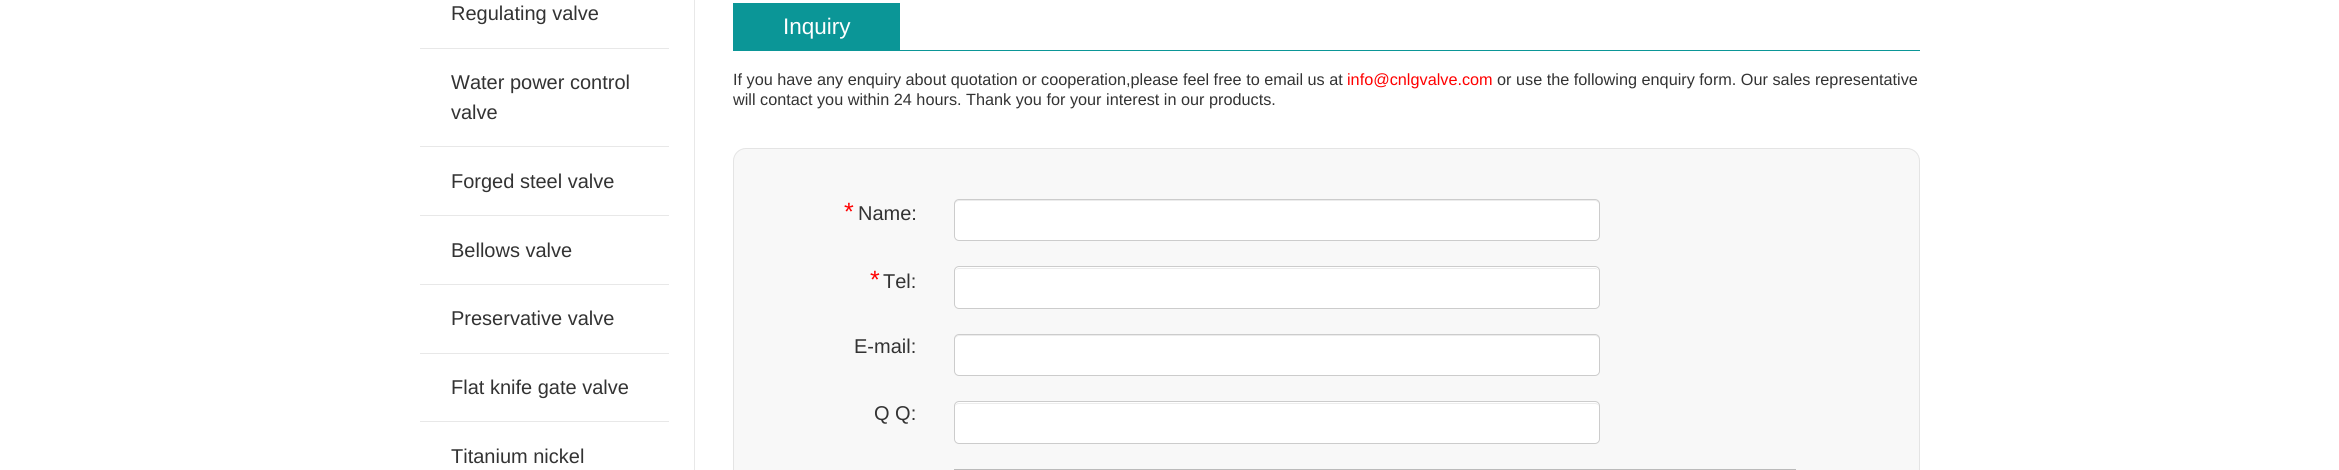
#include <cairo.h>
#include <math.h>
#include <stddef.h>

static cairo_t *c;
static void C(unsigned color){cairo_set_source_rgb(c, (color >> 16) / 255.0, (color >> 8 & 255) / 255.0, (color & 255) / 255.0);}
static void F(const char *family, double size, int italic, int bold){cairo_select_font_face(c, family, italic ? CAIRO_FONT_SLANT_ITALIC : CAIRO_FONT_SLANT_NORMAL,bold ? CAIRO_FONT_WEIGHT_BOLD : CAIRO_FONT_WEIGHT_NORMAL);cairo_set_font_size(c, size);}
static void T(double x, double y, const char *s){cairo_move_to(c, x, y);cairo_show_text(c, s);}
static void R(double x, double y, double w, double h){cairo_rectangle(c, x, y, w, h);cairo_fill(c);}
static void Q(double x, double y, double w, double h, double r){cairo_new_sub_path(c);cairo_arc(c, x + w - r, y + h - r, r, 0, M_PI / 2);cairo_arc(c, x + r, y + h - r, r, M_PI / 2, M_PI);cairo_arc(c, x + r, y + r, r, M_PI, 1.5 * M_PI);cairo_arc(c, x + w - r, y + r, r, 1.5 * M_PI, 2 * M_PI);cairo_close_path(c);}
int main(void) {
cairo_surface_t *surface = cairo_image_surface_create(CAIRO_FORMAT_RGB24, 2339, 470);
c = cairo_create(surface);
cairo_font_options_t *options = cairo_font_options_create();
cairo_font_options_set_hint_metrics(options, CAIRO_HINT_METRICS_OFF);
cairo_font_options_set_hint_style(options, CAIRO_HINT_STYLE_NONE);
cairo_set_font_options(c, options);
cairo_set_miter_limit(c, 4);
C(0xffffff);
cairo_paint(c);
C(0xe8e8e8);
R(694,0,1,470);
R(420,48,249,1);
F("Liberation Sans",20,0,0);
C(0x333333);
T(451,20,"Regulating valve");
C(0xe8e8e8);
R(420,146,249,1);
C(0x333333);
T(451,89,"Water power control");
T(451,119,"valve");
C(0xe8e8e8);
R(420,215,249,1);
C(0x333333);
T(451,188,"Forged steel valve");
C(0xe8e8e8);
R(420,284,249,1);
C(0x333333);
T(451,257,"Bellows valve");
C(0xe8e8e8);
R(420,353,249,1);
C(0x333333);
T(451,325,"Preservative valve");
C(0xe8e8e8);
R(420,421,249,1);
C(0x333333);
T(451,394,"Flat knife gate valve");
T(451,463,"Titanium nickel");
C(0x0b9697);
R(733,50,1187,1);
R(733,3,167,47);
F("Liberation Sans",22.5,0,0);
C(0xffffff);
T(783,34,"Inquiry");
F("Liberation Sans",16.25,0,0);
C(0x333333);
T(733,85,"If you have any enquiry about quotation or cooperation,please feel free to email us at");
C(0xff0000);
T(1347,85,"info@cnlgvalve.com");
C(0x333333);
T(1497,85,"or use the following enquiry form. Our sales representative");
T(733,105,"will contact you within 24 hours. Thank you for your interest in our products.");
C(0xf8f8f8);
Q(733.5,148.5,1186,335,12.5);
cairo_fill_preserve(c);
C(0xe4e4e4);
cairo_set_line_width(c,1);
cairo_stroke(c);
F("Liberation Sans",25,0,0);
C(0xff0000);
T(844,220,"*");
F("Liberation Sans",20,0,0);
C(0x333333);
T(858,220,"Name:");
C(0xffffff);
Q(954,199,646,42,5);
cairo_fill(c);
C(0xececec);
cairo_new_path(c);
cairo_move_to(c,959,201);
cairo_line_to(c,1595,201);
cairo_curve_to(c,1597,201,1599,203,1599,205);
cairo_curve_to(c,1599,202,1598,200,1595,200);
cairo_line_to(c,959,200);
cairo_curve_to(c,956,200,955,202,955,205);
cairo_curve_to(c,955,203,957,201,959,201);
cairo_close_path(c);
cairo_fill(c);
Q(954.5,199.5,645,41,4.5);
C(0xcccccc);
cairo_stroke(c);
F("Liberation Sans",25,0,0);
C(0xff0000);
T(870,288,"*");
F("Liberation Sans",20,0,0);
C(0x333333);
T(883,288,"Tel:");
C(0xffffff);
Q(954,266,646,43,5);
cairo_fill(c);
C(0xececec);
cairo_new_path(c);
cairo_move_to(c,959,269);
cairo_line_to(c,1595,269);
cairo_curve_to(c,1597,269,1599,270,1599,272);
cairo_curve_to(c,1599,270,1597,268,1595,268);
cairo_line_to(c,959,268);
cairo_curve_to(c,957,268,955,270,955,272);
cairo_curve_to(c,955,270,957,269,959,269);
cairo_close_path(c);
cairo_fill(c);
Q(954.5,266.5,645,42,4.5);
C(0xcccccc);
cairo_stroke(c);
C(0x333333);
T(854,353,"E-mail:");
C(0xffffff);
Q(954,334,646,42,5);
cairo_fill(c);
C(0xececec);
cairo_new_path(c);
cairo_move_to(c,959,336);
cairo_line_to(c,1595,336);
cairo_curve_to(c,1597,336,1599,338,1599,340);
cairo_curve_to(c,1599,337,1598,335,1595,335);
cairo_line_to(c,959,335);
cairo_curve_to(c,956,335,955,337,955,340);
cairo_curve_to(c,955,338,957,336,959,336);
cairo_close_path(c);
cairo_fill(c);
Q(954.5,334.5,645,41,4.5);
C(0xcccccc);
cairo_stroke(c);
C(0x333333);
T(874,420,"Q Q:");
C(0xffffff);
Q(954,401,646,43,5);
cairo_fill(c);
C(0xececec);
cairo_new_path(c);
cairo_move_to(c,959,404);
cairo_line_to(c,1595,404);
cairo_curve_to(c,1597,404,1599,405,1599,408);
cairo_curve_to(c,1599,405,1598,403,1595,403);
cairo_line_to(c,959,403);
cairo_curve_to(c,956,403,955,405,955,408);
cairo_curve_to(c,955,405,957,404,959,404);
cairo_close_path(c);
cairo_fill(c);
Q(954.5,401.5,645,42,4.5);
C(0xcccccc);
cairo_stroke(c);
cairo_rectangle(c,954.5,469.5,841,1);
C(0xbbbbbb);
cairo_stroke(c);
cairo_surface_write_to_png(surface, "o.png");
cairo_font_options_destroy(options);
cairo_destroy(c);
cairo_surface_destroy(surface);
return 0;
}
